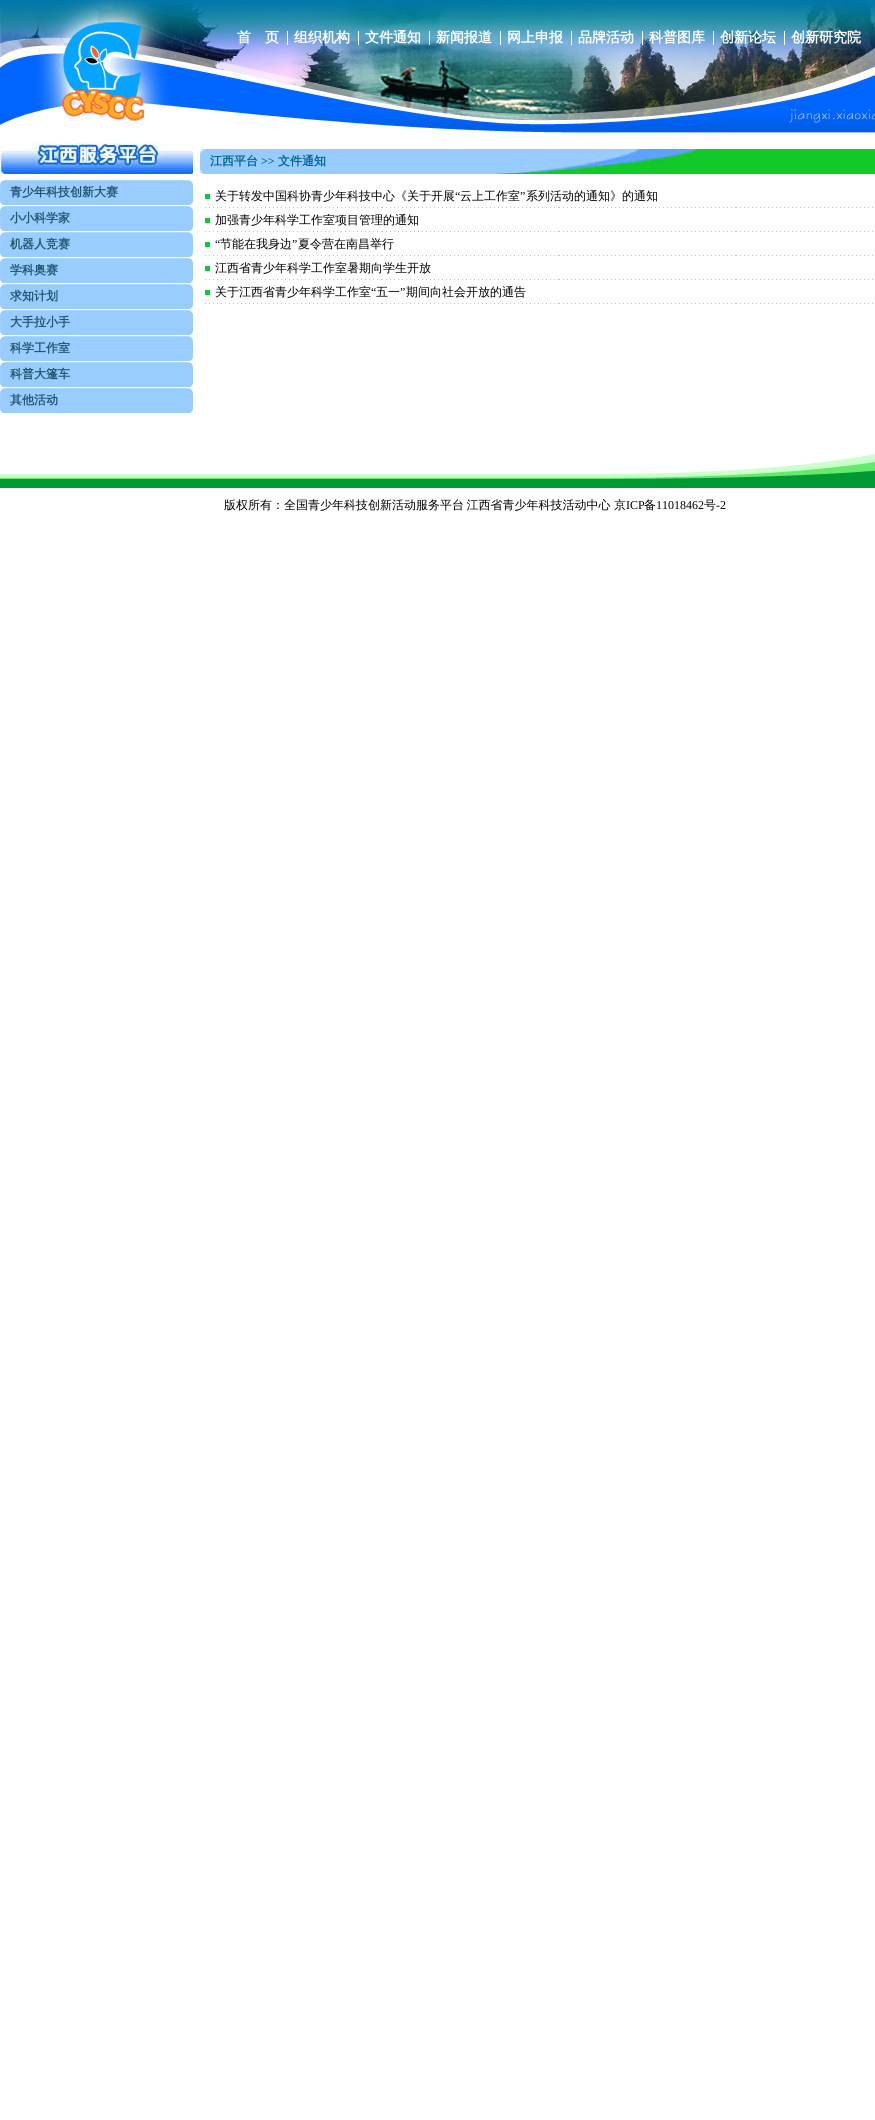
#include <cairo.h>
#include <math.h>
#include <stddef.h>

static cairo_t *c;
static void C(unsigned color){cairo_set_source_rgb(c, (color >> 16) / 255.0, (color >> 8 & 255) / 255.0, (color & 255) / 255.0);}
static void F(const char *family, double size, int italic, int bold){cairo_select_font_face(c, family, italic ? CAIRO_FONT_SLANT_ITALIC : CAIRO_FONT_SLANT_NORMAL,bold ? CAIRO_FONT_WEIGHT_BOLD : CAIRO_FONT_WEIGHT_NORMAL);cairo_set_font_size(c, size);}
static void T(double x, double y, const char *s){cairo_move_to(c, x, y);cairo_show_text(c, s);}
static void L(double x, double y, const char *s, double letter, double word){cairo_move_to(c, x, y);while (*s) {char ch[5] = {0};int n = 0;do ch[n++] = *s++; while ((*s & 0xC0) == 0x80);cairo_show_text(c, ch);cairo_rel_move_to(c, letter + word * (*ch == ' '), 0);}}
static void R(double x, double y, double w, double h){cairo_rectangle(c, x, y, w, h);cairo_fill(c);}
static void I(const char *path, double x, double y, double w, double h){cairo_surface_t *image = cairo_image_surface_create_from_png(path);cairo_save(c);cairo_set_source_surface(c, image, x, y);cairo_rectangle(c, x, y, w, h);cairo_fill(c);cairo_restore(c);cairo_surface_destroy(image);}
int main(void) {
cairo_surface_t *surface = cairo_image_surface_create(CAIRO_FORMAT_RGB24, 875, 2120);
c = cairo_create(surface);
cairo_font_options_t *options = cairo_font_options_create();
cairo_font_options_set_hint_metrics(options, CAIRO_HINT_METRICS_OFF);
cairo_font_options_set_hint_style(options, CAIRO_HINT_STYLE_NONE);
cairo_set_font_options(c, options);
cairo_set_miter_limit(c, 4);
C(0xffffff);
cairo_paint(c);
I("1.png",0,0,875,133);
F("WenQuanYi Zen Hei",14,0,1);
C(0xffffff);
T(237,42,"首　页");
R(287,31,1,14);
T(294,42,"组织机构");
R(358,31,1,14);
T(365,42,"文件通知");
R(429,31,1,14);
T(436,42,"新闻报道");
R(500,31,1,14);
T(507,42,"网上申报");
R(571,31,1,14);
T(578,42,"品牌活动");
R(642,31,1,14);
T(649,42,"科普图库");
R(713,31,1,14);
T(720,42,"创新论坛");
R(784,31,1,14);
T(791,42,"创新研究院");
I("2.png",0,143,193,31);
I("3.png",0,180,193,25);
F("WenQuanYi Zen Hei",12,0,1);
C(0x215670);
T(10,196,"青少年科技创新大赛");
I("3.png",0,206,193,25);
T(10,222,"小小科学家");
I("3.png",0,232,193,25);
T(10,248,"机器人竞赛");
I("3.png",0,258,193,25);
T(10,274,"学科奥赛");
I("3.png",0,284,193,25);
T(10,300,"求知计划");
I("3.png",0,310,193,25);
T(10,326,"大手拉小手");
I("3.png",0,336,193,25);
T(10,352,"科学工作室");
I("3.png",0,362,193,25);
T(10,378,"科普大篷车");
I("3.png",0,388,193,25);
T(10,404,"其他活动");
I("4.png",200,149,675,25);
C(0x006699);
T(210,165,"江西平台");
F("Liberation Serif",12,0,1);
T(261,165,">>");
F("WenQuanYi Zen Hei",12,0,1);
T(278,165,"文件通知");
I("5.png",205,207,668,1);
C(0x00cc33);
R(205,194,5,5);
F("WenQuanYi Zen Hei Medium",12,0,0);
C(0x000000);
T(215,200,"关于转发中国科协青少年科技中心《关于开展");
F("Liberation Serif",12,0,0);
T(455,200,"“");
F("WenQuanYi Zen Hei Medium",12,0,0);
T(460,200,"云上工作室");
F("Liberation Serif",12,0,0);
T(520,200,"”");
F("WenQuanYi Zen Hei Medium",12,0,0);
T(526,200,"系列活动的通知》的通知");
I("5.png",205,231,668,1);
C(0x00cc33);
R(205,218,5,5);
C(0x000000);
T(215,224,"加强青少年科学工作室项目管理的通知");
I("5.png",205,255,668,1);
C(0x00cc33);
R(205,242,5,5);
F("Liberation Serif",12,0,0);
C(0x000000);
T(215,248,"“");
F("WenQuanYi Zen Hei Medium",12,0,0);
T(220,248,"节能在我身边");
F("Liberation Serif",12,0,0);
T(292,248,"”");
F("WenQuanYi Zen Hei Medium",12,0,0);
T(298,248,"夏令营在南昌举行");
I("5.png",205,279,668,1);
C(0x00cc33);
R(205,266,5,5);
C(0x000000);
T(215,272,"江西省青少年科学工作室暑期向学生开放");
I("5.png",205,303,668,1);
C(0x00cc33);
R(205,290,5,5);
C(0x000000);
T(215,296,"关于江西省青少年科学工作室");
F("Liberation Serif",12,0,0);
T(371,296,"“");
F("WenQuanYi Zen Hei Medium",12,0,0);
T(376,296,"五一");
F("Liberation Serif",12,0,0);
T(400,296,"”");
F("WenQuanYi Zen Hei Medium",12,0,0);
T(406,296,"期间向社会开放的通告");
I("6.png",0,454,875,34);
L(224,509,"版权所有：全国青少年科技创新活动服务平台 江西省青少年科技活动中心",0,-1);
T(614,509,"京");
F("Liberation Serif",12,0,0);
T(626,509,"ICP");
F("WenQuanYi Zen Hei Medium",12,0,0);
T(644,509,"备");
F("Liberation Serif",12,0,0);
T(656,509,"11018462");
F("WenQuanYi Zen Hei Medium",12,0,0);
T(704,509,"号");
F("Liberation Serif",12,0,0);
T(716,509,"-2");
cairo_surface_write_to_png(surface, "o.png");
cairo_font_options_destroy(options);
cairo_destroy(c);
cairo_surface_destroy(surface);
return 0;
}
